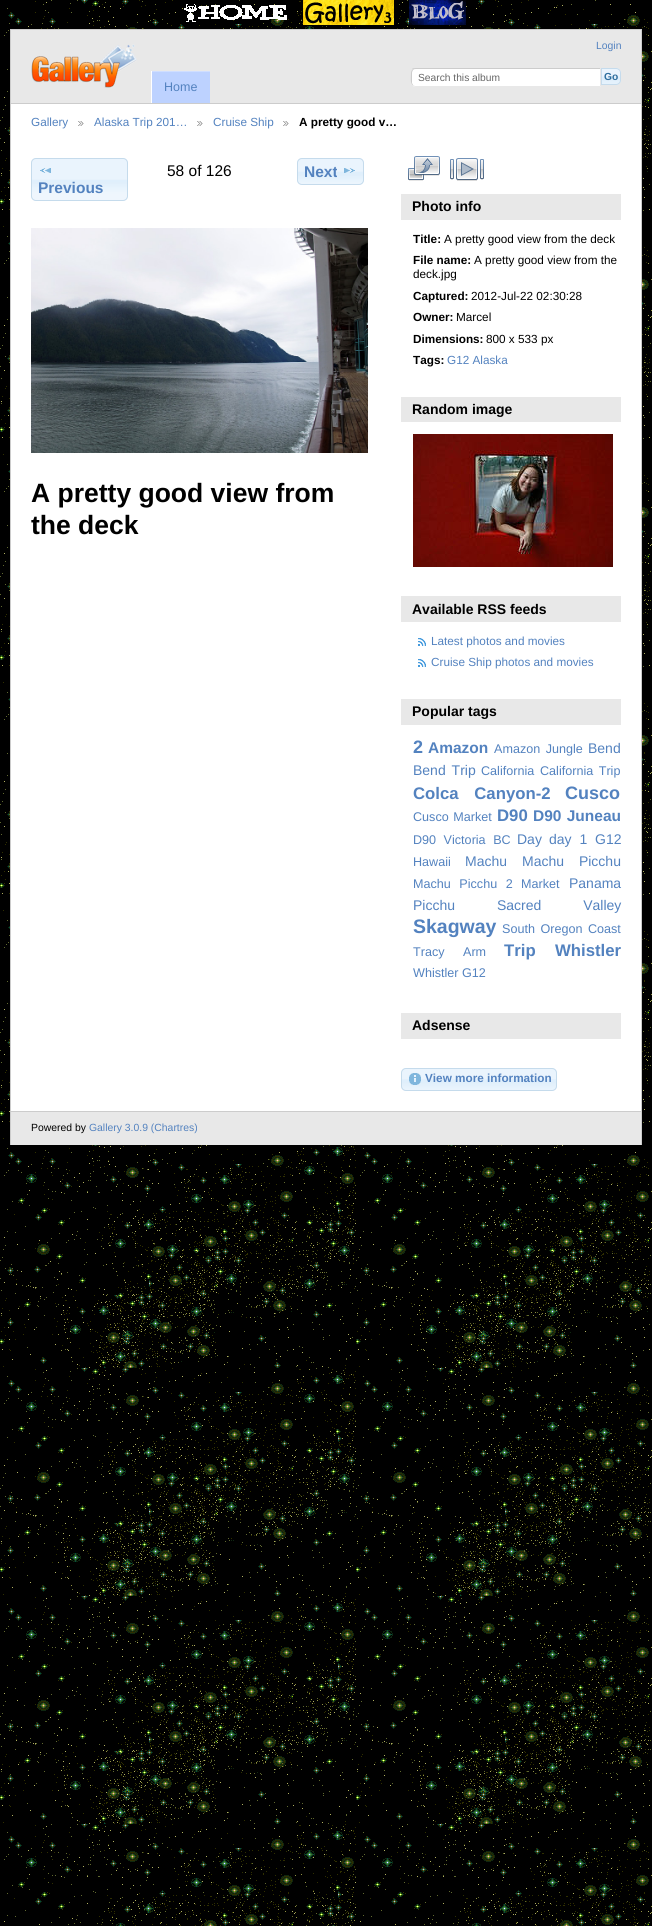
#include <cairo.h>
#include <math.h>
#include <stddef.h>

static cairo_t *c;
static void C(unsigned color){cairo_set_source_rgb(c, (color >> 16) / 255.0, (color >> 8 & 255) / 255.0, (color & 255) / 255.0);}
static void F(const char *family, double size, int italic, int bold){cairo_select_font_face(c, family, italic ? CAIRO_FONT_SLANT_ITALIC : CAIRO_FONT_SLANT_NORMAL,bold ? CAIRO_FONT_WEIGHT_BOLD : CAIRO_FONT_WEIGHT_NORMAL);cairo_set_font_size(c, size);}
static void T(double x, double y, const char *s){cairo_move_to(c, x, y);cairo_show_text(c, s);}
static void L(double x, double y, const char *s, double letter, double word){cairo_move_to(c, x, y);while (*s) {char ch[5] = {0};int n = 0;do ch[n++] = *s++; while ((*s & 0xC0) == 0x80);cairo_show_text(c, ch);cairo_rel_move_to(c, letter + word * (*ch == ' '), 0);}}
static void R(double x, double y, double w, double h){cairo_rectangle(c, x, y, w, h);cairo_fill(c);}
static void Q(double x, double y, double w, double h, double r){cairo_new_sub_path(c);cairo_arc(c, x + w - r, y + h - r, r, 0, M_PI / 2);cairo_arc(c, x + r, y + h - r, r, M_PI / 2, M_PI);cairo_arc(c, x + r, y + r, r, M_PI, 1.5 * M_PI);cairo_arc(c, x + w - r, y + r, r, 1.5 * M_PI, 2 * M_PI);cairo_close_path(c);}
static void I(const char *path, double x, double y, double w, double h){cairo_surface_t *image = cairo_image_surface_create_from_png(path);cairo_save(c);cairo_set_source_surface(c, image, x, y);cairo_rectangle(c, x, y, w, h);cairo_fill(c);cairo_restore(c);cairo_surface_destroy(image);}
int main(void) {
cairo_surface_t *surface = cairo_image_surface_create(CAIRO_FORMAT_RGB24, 652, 1926);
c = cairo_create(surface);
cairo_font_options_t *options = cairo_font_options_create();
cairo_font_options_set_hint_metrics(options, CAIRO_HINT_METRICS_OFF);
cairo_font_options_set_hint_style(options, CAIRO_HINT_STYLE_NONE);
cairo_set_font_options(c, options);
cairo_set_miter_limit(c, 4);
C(0xffffff);
cairo_paint(c);
I("1.png",0,1145,652,781);
I("2.png",0,0,652,1145);
I("3.png",184,4,103,18);
I("4.png",303,0,91,25);
I("5.png",409,0,57,25);
C(0xffffff);
R(11,104,630,1007);
C(0xcccccc);
R(10,29,632,1);
R(641,29,1,1116);
R(10,29,1,1116);
C(0xe8e8e8);
R(11,30,630,73);
C(0xcccccc);
R(11,103,630,1);
I("6.png",31,44,106,44);
F("Liberation Sans",10.4,0,0);
C(0x5382bf);
T(596,49,"Login");
C(0xffffff);
cairo_new_path(c);
cairo_move_to(c,416,68);
cairo_line_to(c,601,68);
cairo_line_to(c,601,87);
cairo_line_to(c,416,87);
cairo_curve_to(c,413,87,411,85,411,82);
cairo_line_to(c,411,73);
cairo_curve_to(c,411,70,413,68,416,68);
cairo_close_path(c);
cairo_fill(c);
C(0xcccccc);
cairo_new_path(c);
cairo_move_to(c,416,68);
cairo_curve_to(c,414,68,413,68,412,69);
cairo_line_to(c,413,70);
cairo_curve_to(c,414,69,415,69,416,69);
cairo_line_to(c,600,69);
cairo_line_to(c,601,68);
cairo_close_path(c);
cairo_fill(c);
C(0xe8e8e8);
cairo_new_path(c);
cairo_move_to(c,601,68);
cairo_line_to(c,600,69);
cairo_line_to(c,600,86);
cairo_line_to(c,601,87);
cairo_close_path(c);
cairo_fill(c);
cairo_new_path(c);
cairo_move_to(c,601,87);
cairo_line_to(c,600,86);
cairo_line_to(c,415,86);
cairo_line_to(c,413,85);
cairo_line_to(c,412,86);
cairo_curve_to(c,413,86,414,87,416,87);
cairo_close_path(c);
cairo_fill(c);
C(0xcccccc);
cairo_new_path(c);
cairo_move_to(c,411,73);
cairo_curve_to(c,411,76,410,83.5,412.5,85.5);
cairo_line_to(c,413,85);
cairo_line_to(c,412,83);
cairo_line_to(c,412,73);
cairo_curve_to(c,412,72,412.5,71,413,70);
cairo_line_to(c,412.5,69.5);
cairo_curve_to(c,411.5,70,411,71.5,411,73);
cairo_close_path(c);
cairo_fill(c);
F("Liberation Sans",10.25,0,0);
C(0x666666);
T(418,81,"Search this album");
I("7.png",602,68,19,17);
cairo_new_path(c);
cairo_move_to(c,601.5,68.5);
cairo_line_to(c,616,68.5);
cairo_curve_to(c,618.5,68.5,620.5,70.5,620.5,73);
cairo_line_to(c,620.5,80);
cairo_curve_to(c,620.5,82.5,618.5,84.5,616,84.5);
cairo_line_to(c,601.5,84.5);
cairo_close_path(c);
C(0xc5dbec);
cairo_set_line_width(c,1);
cairo_stroke(c);
F("Liberation Sans",10.25,0,1);
C(0x2e6e9e);
T(604,80,"Go");
C(0xbdd2ff);
R(152,72,58,31);
C(0xcfdeff);
R(151,71,59,1);
C(0xffffff);
R(151,71,1,32);
F("Liberation Sans",12.5,0,0);
C(0x5382bf);
T(164,91,"Home");
F("Liberation Sans",11.75,0,0);
T(31,126,"Gallery");
I("8.png",78,121,6,5);
T(94,126,"Alaska Trip 201…");
I("8.png",197,121,6,5);
T(213,126,"Cruise Ship");
I("8.png",283,121,6,5);
F("Liberation Sans",11.75,0,1);
C(0x000000);
T(299,126,"A pretty good v…");
F("Liberation Sans",15.5,0,0);
T(167,176,"58 of 126");
I("9.png",297,158,67,27);
Q(297.5,158.5,66,26,4.5);
C(0xc5dbec);
cairo_stroke(c);
F("Liberation Sans",15.5,0,1);
C(0x5382bf);
T(304,177,"Next");
I("10.png",344,168,11,5);
I("11.png",31,158,97,43);
Q(31.5,158.5,96,42,4.5);
C(0xc5dbec);
cairo_stroke(c);
I("12.png",40,168,11,5);
C(0x5382bf);
T(38,193,"Previous");
I("13.png",31,228,337,225);
F("Liberation Sans",26.5,0,1);
C(0x000000);
T(31,502,"A pretty good view from");
T(31,534,"the deck");
I("14.png",408,156,32,25);
I("15.png",450,158,34,23);
C(0xe8e8e8);
R(401,194,220,26);
F("Liberation Sans",14,0,1);
C(0x000000);
T(412,211,"Photo info");
F("Liberation Sans",11.75,0,1);
T(413,243,"Title:");
F("Liberation Sans",11.75,0,0);
T(444,243,"A pretty good view from the deck");
F("Liberation Sans",11.75,0,1);
T(413,264,"File name:");
F("Liberation Sans",11.75,0,0);
T(474,264,"A pretty good view from the");
T(413,278,"deck.jpg");
F("Liberation Sans",11.75,0,1);
T(413,300,"Captured:");
F("Liberation Sans",11.75,0,0);
T(471,300,"2012-Jul-22 02:30:28");
F("Liberation Sans",11.75,0,1);
T(413,321,"Owner:");
F("Liberation Sans",11.75,0,0);
T(456,321,"Marcel");
F("Liberation Sans",11.75,0,1);
T(413,343,"Dimensions:");
F("Liberation Sans",11.75,0,0);
T(486,343,"800 x 533 px");
F("Liberation Sans",11.75,0,1);
T(413,364,"Tags:");
F("Liberation Sans",11.75,0,0);
C(0x5382bf);
T(447,364,"G12 Alaska");
C(0xe8e8e8);
R(401,397,220,25);
F("Liberation Sans",14,0,1);
C(0x000000);
T(412,414,"Random image");
I("16.png",413,434,200,133);
C(0xe8e8e8);
R(401,596,220,26);
C(0x000000);
T(412,614,"Available RSS feeds");
I("17.png",418,638,8,8);
F("Liberation Sans",11.75,0,0);
C(0x5382bf);
T(431,645,"Latest photos and movies");
I("17.png",418,659,8,8);
T(431,666,"Cruise Ship photos and movies");
C(0xe8e8e8);
R(401,699,220,26);
F("Liberation Sans",14,0,1);
C(0x000000);
T(412,716,"Popular tags");
F("Liberation Sans",18,0,1);
C(0x5382bf);
T(413,753,"2");
F("Liberation Sans",15.5,0,1);
T(428,753,"Amazon");
F("Liberation Sans",12.6,0,0);
L(494,753,"Amazon Jungle",0,2);
F("Liberation Sans",14,0,0);
T(588,753,"Bend");
L(413,775,"Bend Trip",0,2);
F("Liberation Sans",12.6,0,0);
T(481,775,"California");
L(540,775,"California Trip",0,2);
F("Liberation Sans",16.75,0,1);
L(413,799,"Colca Canyon-2",0,11);
F("Liberation Sans",18,0,1);
T(565,799,"Cusco");
F("Liberation Sans",12.6,0,0);
L(413,821,"Cusco Market",0,1);
F("Liberation Sans",16.75,0,1);
T(497,821,"D90");
F("Liberation Sans",15.5,0,1);
L(533,821,"D90 Juneau",0,1);
F("Liberation Sans",12.6,0,0);
L(413,844,"D90 Victoria BC",0,4);
F("Liberation Sans",14,0,0);
T(517,844,"Day");
L(549,844,"day 1",0,4);
T(595,844,"G12");
F("Liberation Sans",12.6,0,0);
T(413,866,"Hawaii");
F("Liberation Sans",14,0,0);
T(465,866,"Machu");
L(522,866,"Machu Picchu",0,11);
F("Liberation Sans",12.6,0,0);
L(413,888,"Machu Picchu 2",0,5);
T(521,888,"Market");
F("Liberation Sans",14,0,0);
T(569,888,"Panama");
T(413,910,"Picchu");
L(497,910,"Sacred Valley",0,38);
F("Liberation Sans",19.5,0,1);
T(413,933,"Skagway");
F("Liberation Sans",12.6,0,0);
L(502,933,"South Oregon Coast",0,2);
L(413,956,"Tracy Arm",0,15);
F("Liberation Sans",16.75,0,1);
T(504,956,"Trip");
T(555,956,"Whistler");
F("Liberation Sans",12.6,0,0);
T(413,977,"Whistler G12");
C(0xe8e8e8);
R(401,1013,220,26);
F("Liberation Sans",14,0,1);
C(0x000000);
T(412,1030,"Adsense");
I("18.png",401,1068,156,23);
Q(401.5,1068.5,155,22,4.5);
C(0xc5dbec);
cairo_stroke(c);
I("19.png",409,1073,12,12);
F("Liberation Sans",11.75,0,1);
C(0x5382bf);
T(425,1082,"View more information");
C(0xe8e8e8);
R(11,1112,630,33);
C(0xcccccc);
R(11,1111,630,1);
F("Liberation Sans",10.4,0,0);
C(0x000000);
T(31,1131,"Powered by");
C(0x5382bf);
T(89,1131,"Gallery 3.0.9 (Chartres)");
cairo_surface_write_to_png(surface, "o.png");
cairo_font_options_destroy(options);
cairo_destroy(c);
cairo_surface_destroy(surface);
return 0;
}
